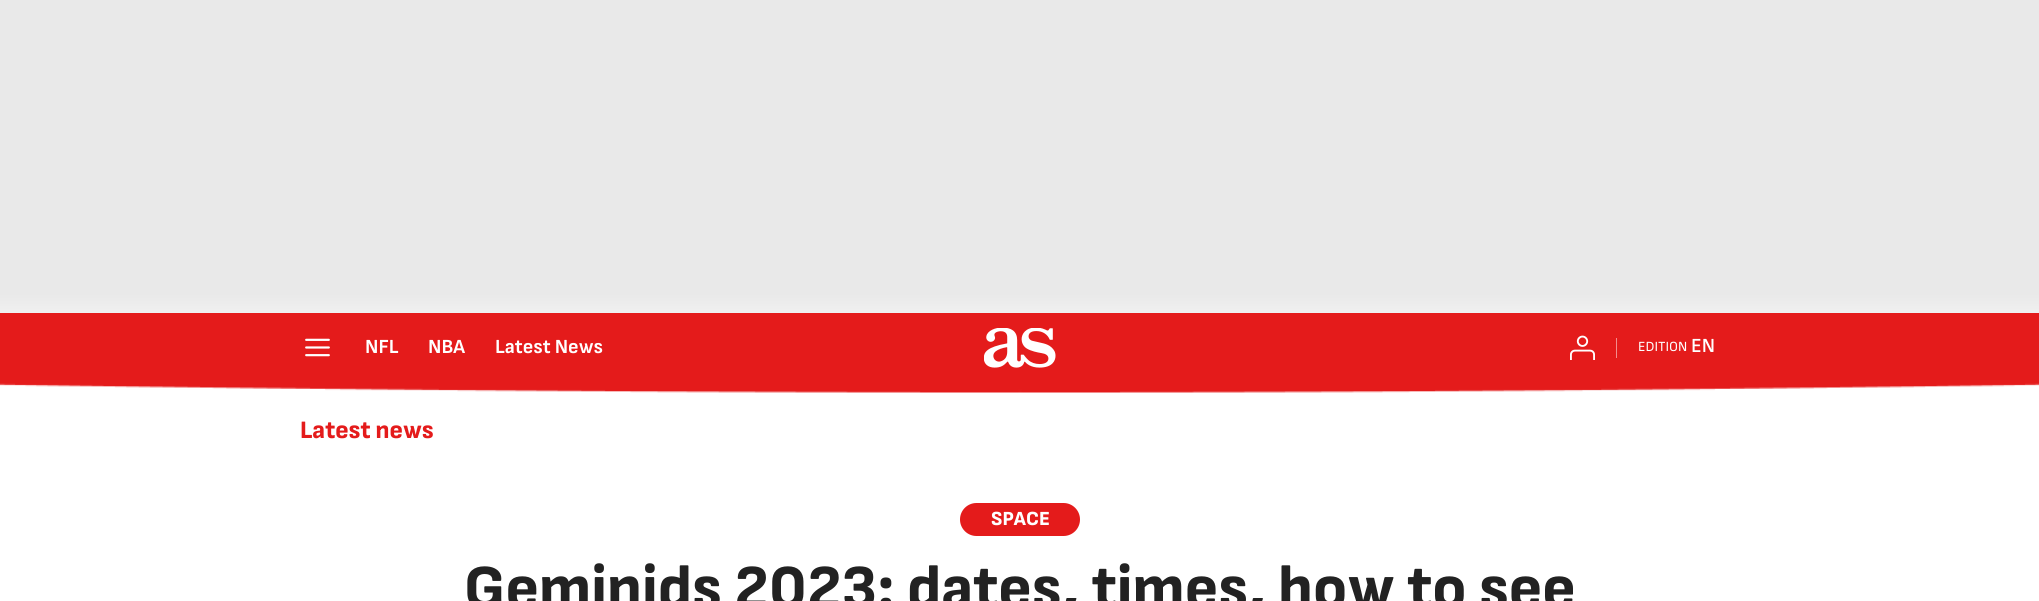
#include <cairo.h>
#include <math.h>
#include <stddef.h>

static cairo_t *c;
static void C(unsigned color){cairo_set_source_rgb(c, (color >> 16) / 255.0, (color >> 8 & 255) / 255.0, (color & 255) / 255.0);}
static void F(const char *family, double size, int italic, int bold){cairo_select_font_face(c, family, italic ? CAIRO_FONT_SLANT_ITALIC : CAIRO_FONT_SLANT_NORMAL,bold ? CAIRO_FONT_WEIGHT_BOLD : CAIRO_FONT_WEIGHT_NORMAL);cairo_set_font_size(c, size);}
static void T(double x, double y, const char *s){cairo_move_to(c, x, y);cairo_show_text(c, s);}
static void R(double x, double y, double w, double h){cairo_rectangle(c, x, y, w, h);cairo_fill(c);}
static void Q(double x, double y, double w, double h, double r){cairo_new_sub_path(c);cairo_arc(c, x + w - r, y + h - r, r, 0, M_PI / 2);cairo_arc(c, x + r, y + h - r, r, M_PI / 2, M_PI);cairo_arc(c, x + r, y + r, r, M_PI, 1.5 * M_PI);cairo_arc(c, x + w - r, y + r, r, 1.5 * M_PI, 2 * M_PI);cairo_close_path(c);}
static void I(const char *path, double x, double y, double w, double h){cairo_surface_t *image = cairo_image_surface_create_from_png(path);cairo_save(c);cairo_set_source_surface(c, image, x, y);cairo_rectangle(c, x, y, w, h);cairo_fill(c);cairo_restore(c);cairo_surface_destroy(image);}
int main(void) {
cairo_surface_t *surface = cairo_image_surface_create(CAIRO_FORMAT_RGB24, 2039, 601);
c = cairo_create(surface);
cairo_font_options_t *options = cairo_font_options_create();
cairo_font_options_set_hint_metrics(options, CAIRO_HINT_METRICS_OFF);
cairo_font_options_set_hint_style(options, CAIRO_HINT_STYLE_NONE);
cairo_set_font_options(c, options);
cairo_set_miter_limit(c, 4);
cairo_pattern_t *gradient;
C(0xffffff);
cairo_paint(c);
gradient = cairo_pattern_create_linear(1020,313,1020,0);
cairo_pattern_add_color_stop_rgba(gradient,0,0.941,0.941,0.941,1);
cairo_pattern_add_color_stop_rgba(gradient,.06,0.914,0.914,0.914,1);
cairo_set_source(c,gradient);
cairo_pattern_destroy(gradient);
R(0,0,2039,313);
I("1.png",0,313,2039,80);
I("2.png",305,338,25,19);
F("Sofia Sans",20,0,1);
C(0xffffff);
T(365,353,"NFL");
T(428,353,"NBA");
T(495,353,"Latest News");
I("3.png",984,328,72,40);
I("4.png",1570,335,25,25);
C(0xf28d8d);
R(1616,338,1,20);
F("Sofia Sans",14,0,0);
C(0xffffff);
T(1638,351,"EDITION");
F("Sofia Sans SemiBold",20,0,0);
T(1691,352,"EN");
F("Sofia Sans ExtraBold",25,0,0);
C(0xe41b1b);
T(300,438,"Latest news");
Q(960,503,120,33,16.5);
cairo_fill(c);
F("Sofia Sans ExtraBold",20,0,0);
C(0xffffff);
T(991,525,"SPACE");
F("Sofia Sans ExtraBold",62.5,0,0);
C(0x222222);
T(464,608,"Geminids 2023: dates, times, how to see");
cairo_surface_write_to_png(surface, "o.png");
cairo_font_options_destroy(options);
cairo_destroy(c);
cairo_surface_destroy(surface);
return 0;
}
